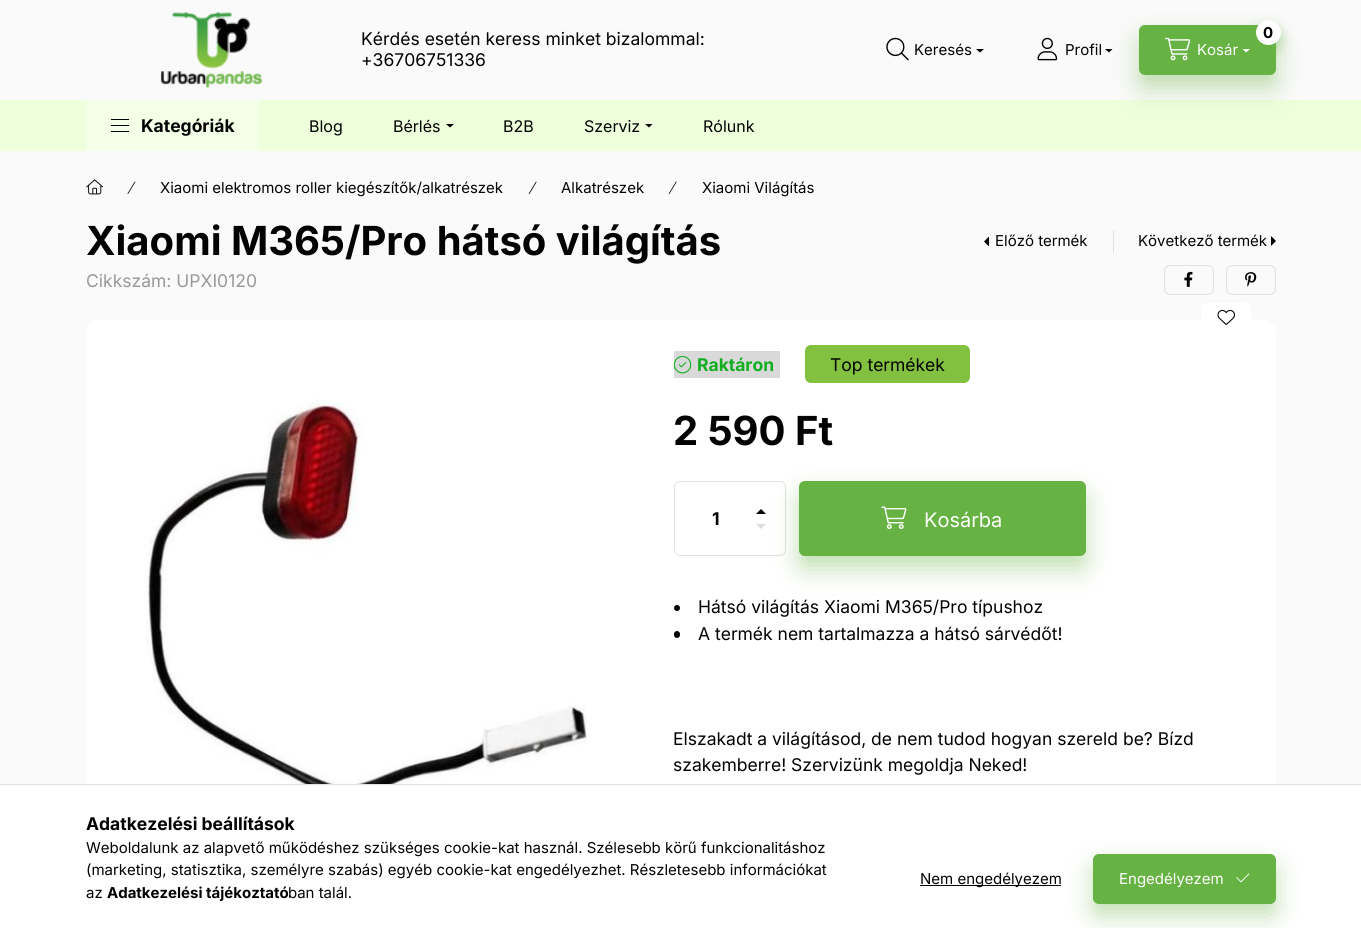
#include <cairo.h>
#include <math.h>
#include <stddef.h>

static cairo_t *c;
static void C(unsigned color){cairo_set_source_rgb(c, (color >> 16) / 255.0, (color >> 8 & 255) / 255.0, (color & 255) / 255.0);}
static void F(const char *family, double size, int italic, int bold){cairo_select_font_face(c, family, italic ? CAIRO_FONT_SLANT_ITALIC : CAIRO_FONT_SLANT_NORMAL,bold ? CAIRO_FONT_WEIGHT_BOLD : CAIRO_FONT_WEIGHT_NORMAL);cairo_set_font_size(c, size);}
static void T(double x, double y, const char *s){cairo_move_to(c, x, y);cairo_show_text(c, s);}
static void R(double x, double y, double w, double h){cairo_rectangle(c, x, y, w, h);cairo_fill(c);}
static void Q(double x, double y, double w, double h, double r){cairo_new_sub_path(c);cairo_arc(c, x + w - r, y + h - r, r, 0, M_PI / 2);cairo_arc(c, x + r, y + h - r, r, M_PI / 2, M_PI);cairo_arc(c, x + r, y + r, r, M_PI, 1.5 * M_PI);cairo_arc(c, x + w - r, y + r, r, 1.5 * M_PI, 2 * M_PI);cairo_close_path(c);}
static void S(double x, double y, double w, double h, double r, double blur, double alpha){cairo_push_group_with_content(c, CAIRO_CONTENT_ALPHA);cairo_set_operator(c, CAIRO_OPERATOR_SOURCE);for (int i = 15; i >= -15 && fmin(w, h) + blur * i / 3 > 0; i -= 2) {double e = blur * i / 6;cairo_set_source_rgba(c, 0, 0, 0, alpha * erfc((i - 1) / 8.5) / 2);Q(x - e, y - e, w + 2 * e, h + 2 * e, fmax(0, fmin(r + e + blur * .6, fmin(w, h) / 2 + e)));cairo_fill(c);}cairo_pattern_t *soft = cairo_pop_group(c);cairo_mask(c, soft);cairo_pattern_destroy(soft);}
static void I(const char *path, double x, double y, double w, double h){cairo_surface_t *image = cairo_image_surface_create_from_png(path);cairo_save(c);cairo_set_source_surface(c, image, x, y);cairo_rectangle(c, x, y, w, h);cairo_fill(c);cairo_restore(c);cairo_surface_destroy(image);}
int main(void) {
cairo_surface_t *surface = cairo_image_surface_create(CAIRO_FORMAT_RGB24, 1361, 928);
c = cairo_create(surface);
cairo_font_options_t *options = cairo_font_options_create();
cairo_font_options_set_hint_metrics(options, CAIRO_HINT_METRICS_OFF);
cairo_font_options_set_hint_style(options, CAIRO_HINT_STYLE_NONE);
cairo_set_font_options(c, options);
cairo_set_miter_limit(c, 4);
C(0xfafafa);
cairo_paint(c);
I("1.png",160,12,103,76);
F("Inter",17.5,0,0);
C(0x020202);
T(361,45,"Kérdés esetén keress minket bizalommal:");
T(361,66,"+36706751336");
I("2.png",886,37,23,24);
F("Inter",15,0,0);
T(914,55,"Keresés");
cairo_new_path(c);
cairo_move_to(c,976,49);
cairo_line_to(c,984,49);
cairo_line_to(c,980,52.5);
cairo_close_path(c);
cairo_fill(c);
I("3.png",1037,37,21,24);
C(0xeeffdb);
R(0,100,1361,51);
C(0x66b242);
S(1139,38,137,50,6,12.5,.4);
C(0x020202);
T(1065,55,"Profil");
cairo_new_path(c);
cairo_move_to(c,1105,49);
cairo_line_to(c,1112.5,49);
cairo_line_to(c,1109,52.5);
cairo_close_path(c);
cairo_fill(c);
C(0x66b242);
Q(1139,25,137,50,6);
cairo_fill(c);
C(0x66b242);
S(1256,26,25,25,12.5,6,.4);
C(0xffffff);
cairo_arc(c,1268.5,32.5,12.5,0,2 * M_PI);
cairo_fill(c);
F("Inter",15,0,1);
C(0x020202);
T(1263,38,"0");
I("4.png",1165,37,26,24);
F("Inter",15,0,0);
C(0xffffff);
T(1197,55,"Kosár");
cairo_new_path(c);
cairo_move_to(c,1242.5,49);
cairo_line_to(c,1250,49);
cairo_line_to(c,1246,52.5);
cairo_close_path(c);
cairo_fill(c);
C(0xf3ffe6);
R(86,100,173,51);
C(0x020202);
R(111,119,18,1);
R(111,125,18,1);
R(111,131,18,1);
F("Inter",17.5,0,1);
T(141,132,"Kategóriák");
F("Inter",16,0,0);
T(309,132,"Blog");
T(393,132,"Bérlés");
cairo_new_path(c);
cairo_move_to(c,446,124);
cairo_line_to(c,454,124);
cairo_line_to(c,450,127.5);
cairo_close_path(c);
cairo_fill(c);
T(503,132,"B2B");
T(584,132,"Szerviz");
cairo_new_path(c);
cairo_move_to(c,645,124);
cairo_line_to(c,652.5,124);
cairo_line_to(c,649,127.5);
cairo_close_path(c);
cairo_fill(c);
T(703,132,"Rólunk");
I("5.png",86,179,18,16);
I("6.png",127,181,9,13);
F("Inter",15,0,0);
T(160,193,"Xiaomi elektromos roller kiegészítők/alkatrészek");
I("7.png",528,181,9,13);
T(561,193,"Alkatrészek");
I("7.png",668,181,9,13);
T(702,193,"Xiaomi Világítás");
F("Inter",40,0,1);
T(86,255,"Xiaomi M365/Pro hátsó világítás");
cairo_new_path(c);
cairo_move_to(c,989,246.5);
cairo_line_to(c,989,236.5);
cairo_line_to(c,984,241.5);
cairo_close_path(c);
cairo_fill(c);
F("Inter",15,0,0);
T(995,246,"Előző termék");
C(0xe1e1e1);
R(1113,230,1,23);
C(0x020202);
T(1138,246,"Következő termék");
cairo_new_path(c);
cairo_move_to(c,1271,246);
cairo_line_to(c,1271,236);
cairo_line_to(c,1276,241);
cairo_close_path(c);
cairo_fill(c);
F("Inter",17.5,0,0);
C(0x999999);
T(86,287,"Cikkszám: UPXI0120");
Q(1164.5,265.5,49,29,5.5);
C(0xe1e1e1);
cairo_set_line_width(c,1);
cairo_stroke(c);
I("8.png",1184,271,9,16);
Q(1226.5,265.5,49,29,5.5);
cairo_stroke(c);
I("9.png",1245,272,12,15);
C(0xffffff);
Q(86,320,1190,563,13);
cairo_fill(c);
Q(1201,303,50,30,6);
cairo_fill(c);
I("10.png",1217,309,18,16);
I("11.png",144,399,443,385);
C(0xd9d9d9);
R(674,351,106,27);
I("12.png",673,355,19,19);
F("Inter",17.5,0,1);
C(0x10ae20);
T(697,371,"Raktáron");
C(0x82c13f);
Q(805,345,165,38,6);
cairo_fill(c);
F("Inter",17.5,0,0);
C(0x020202);
T(830,371,"Top termékek");
F("Inter",40,0,1);
T(673,445,"2 590 Ft");
Q(674.5,481.5,111,74,5.5);
C(0xe1e1e1);
cairo_stroke(c);
F("Inter",17.5,0,1);
C(0x020202);
T(712,525,"1");
cairo_new_path(c);
cairo_move_to(c,766,514);
cairo_line_to(c,756,514);
cairo_line_to(c,761,509);
cairo_close_path(c);
cairo_fill(c);
C(0xdddddd);
cairo_new_path(c);
cairo_move_to(c,756,524);
cairo_line_to(c,766,524);
cairo_line_to(c,761,529);
cairo_close_path(c);
cairo_fill(c);
C(0x66b242);
S(799,494,287,75,6,12.5,.4);
C(0x66b242);
Q(799,481,287,75,6);
cairo_fill(c);
I("13.png",881,506,26,23);
F("Inter",20,0,0);
C(0xffffff);
T(924,527,"Kosárba");
C(0x020202);
cairo_new_path(c);
cairo_arc(c,677,608,3,0,2 * M_PI);
cairo_fill(c);
F("Inter",17.5,0,0);
T(698,613,"Hátsó világítás Xiaomi M365/Pro típushoz");
Q(674,631,6,7,3);
cairo_fill(c);
T(698,640,"A termék nem tartalmazza a hátsó sárvédőt!");
T(673,745,"Elszakadt a világításod, de nem tudod hogyan szereld be? Bízd");
T(673,771,"szakemberre! Szervizünk megoldja Neked!");
C(0xffffff);
R(0,785,1361,143);
C(0xe1e1e1);
R(0,784,1361,1);
F("Inter",17.5,0,1);
C(0x020202);
T(86,830,"Adatkezelési beállítások");
F("Inter",15,0,0);
T(86,853,"Weboldalunk az alapvető működéshez szükséges cookie-kat használ. Szélesebb körű funkcionalitáshoz");
T(86,875,"(marketing, statisztika, személyre szabás) egyéb cookie-kat engedélyezhet. Részletesebb információkat");
T(86,898,"az");
F("Inter",15,0,1);
T(107,898,"Adatkezelési tájékoztató");
F("Inter",15,0,0);
T(288,898,"ban talál.");
R(920,885,141,1);
T(920,884,"Nem engedélyezem");
C(0x66b242);
S(1093,866,183,50,6,12.5,.4);
C(0x66b242);
Q(1093.5,854.5,182,49,5.5);
cairo_fill_preserve(c);
cairo_stroke(c);
C(0xffffff);
T(1119,884,"Engedélyezem");
I("14.png",1236,873,14,10);
cairo_surface_write_to_png(surface, "o.png");
cairo_font_options_destroy(options);
cairo_destroy(c);
cairo_surface_destroy(surface);
return 0;
}
